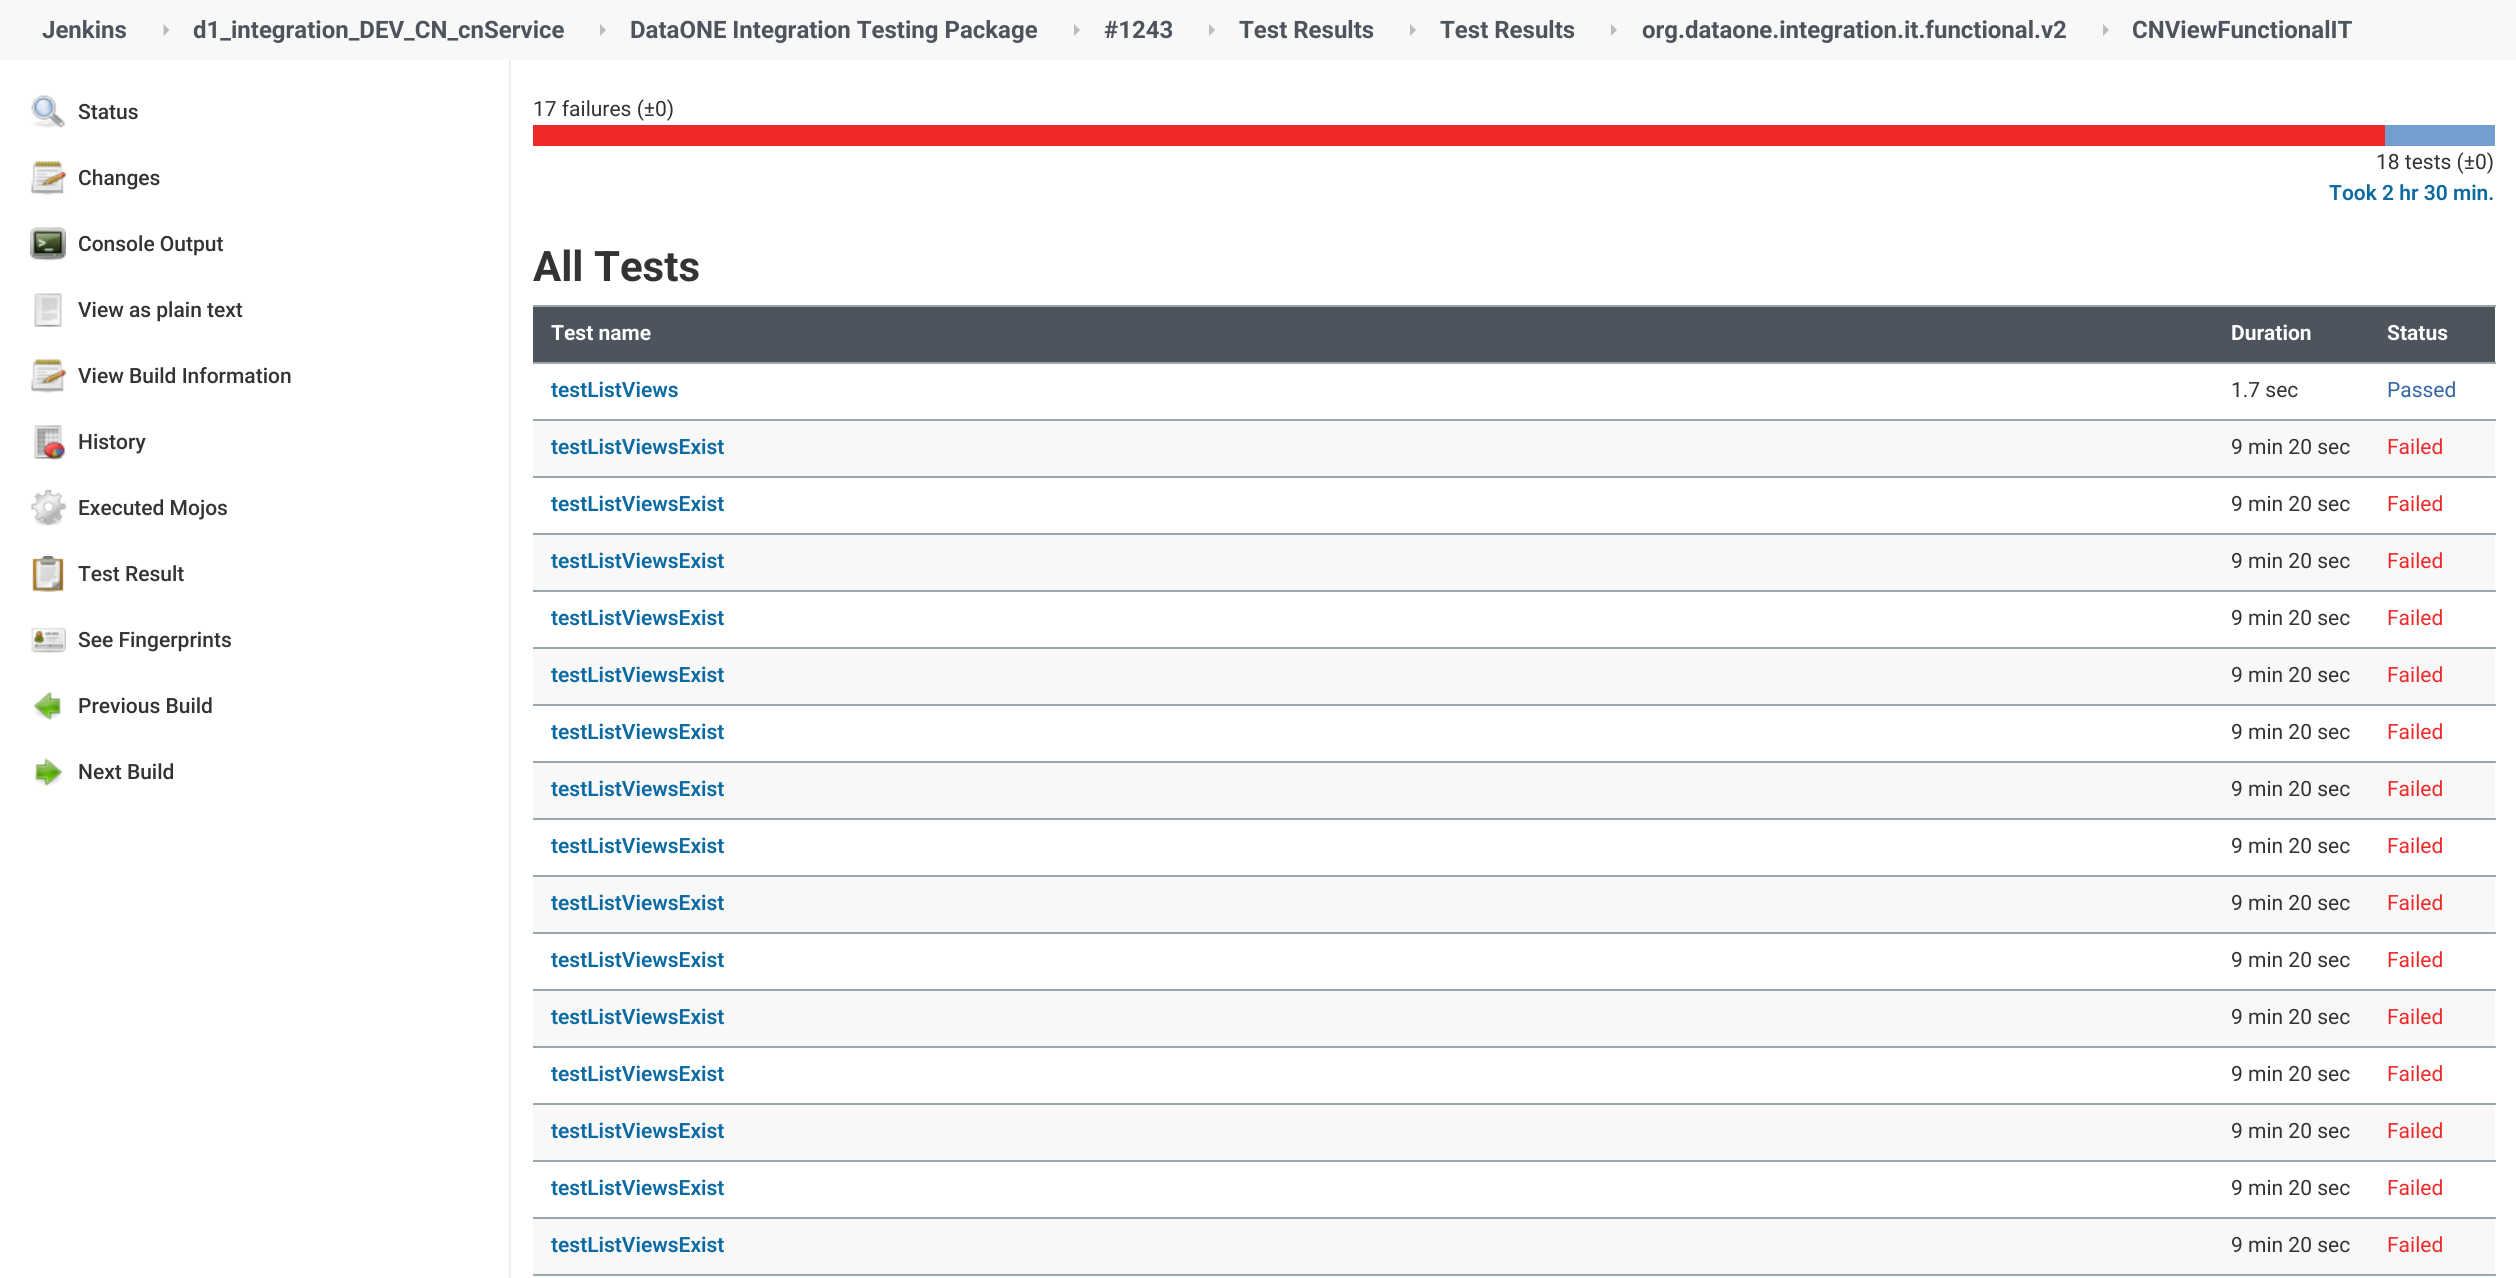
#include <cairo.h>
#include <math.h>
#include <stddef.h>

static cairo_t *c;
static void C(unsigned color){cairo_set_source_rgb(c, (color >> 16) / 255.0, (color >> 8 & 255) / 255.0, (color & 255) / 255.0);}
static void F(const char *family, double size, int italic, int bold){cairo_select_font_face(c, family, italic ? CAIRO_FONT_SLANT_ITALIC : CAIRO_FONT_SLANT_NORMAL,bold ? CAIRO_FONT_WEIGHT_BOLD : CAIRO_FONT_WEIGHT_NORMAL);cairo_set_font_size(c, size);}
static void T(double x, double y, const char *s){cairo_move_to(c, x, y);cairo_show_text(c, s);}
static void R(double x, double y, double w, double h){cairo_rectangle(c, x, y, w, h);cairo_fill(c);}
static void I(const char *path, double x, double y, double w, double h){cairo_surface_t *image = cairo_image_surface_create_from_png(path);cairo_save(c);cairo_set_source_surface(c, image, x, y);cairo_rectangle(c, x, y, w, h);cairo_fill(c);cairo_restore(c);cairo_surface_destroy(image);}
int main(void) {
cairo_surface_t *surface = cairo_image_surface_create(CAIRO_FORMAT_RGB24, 2516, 1278);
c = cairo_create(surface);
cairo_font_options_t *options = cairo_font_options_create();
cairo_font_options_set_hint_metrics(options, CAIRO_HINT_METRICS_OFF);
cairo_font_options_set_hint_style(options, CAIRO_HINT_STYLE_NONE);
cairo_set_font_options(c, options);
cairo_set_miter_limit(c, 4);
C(0xffffff);
cairo_paint(c);
C(0xf8f8f8);
R(0,0,2516,60);
F("Roboto",24,0,1);
C(0x4d545d);
T(42,38,"Jenkins");
C(0xbcbcbc);
cairo_new_path(c);
cairo_move_to(c,163.5,36);
cairo_line_to(c,163.5,24);
cairo_line_to(c,169.5,30);
cairo_close_path(c);
cairo_fill(c);
C(0x4d545d);
T(193,38,"d1_integration_DEV_CN_cnService");
C(0xbcbcbc);
cairo_new_path(c);
cairo_move_to(c,600,36);
cairo_line_to(c,600,24);
cairo_line_to(c,606,30);
cairo_close_path(c);
cairo_fill(c);
C(0x4d545d);
T(630,38,"DataONE Integration Testing Package");
C(0xbcbcbc);
cairo_new_path(c);
cairo_move_to(c,1074,36);
cairo_line_to(c,1074,24);
cairo_line_to(c,1080,30);
cairo_close_path(c);
cairo_fill(c);
C(0x4d545d);
T(1104,38,"#1243");
C(0xbcbcbc);
cairo_new_path(c);
cairo_move_to(c,1209,36);
cairo_line_to(c,1209,24);
cairo_line_to(c,1215,30);
cairo_close_path(c);
cairo_fill(c);
C(0x4d545d);
T(1239,38,"Test Results");
C(0xbcbcbc);
cairo_new_path(c);
cairo_move_to(c,1410,36);
cairo_line_to(c,1410,24);
cairo_line_to(c,1416,30);
cairo_close_path(c);
cairo_fill(c);
C(0x4d545d);
T(1440,38,"Test Results");
C(0xbcbcbc);
cairo_new_path(c);
cairo_move_to(c,1611,36);
cairo_line_to(c,1611,24);
cairo_line_to(c,1617,30);
cairo_close_path(c);
cairo_fill(c);
C(0x4d545d);
T(1642,38,"org.dataone.integration.it.functional.v2");
C(0xbcbcbc);
cairo_new_path(c);
cairo_move_to(c,2103,36);
cairo_line_to(c,2103,24);
cairo_line_to(c,2109,30);
cairo_close_path(c);
cairo_fill(c);
C(0x4d545d);
T(2132,38,"CNViewFunctionalIT");
C(0xeaeff2);
R(509,60,2,1218);
I("1.png",31,95,34,33);
F("Roboto Medium",21,0,0);
C(0x333333);
T(78,119,"Status");
I("2.png",31,161,35,34);
T(78,185,"Changes");
I("3.png",30,227,36,34);
T(78,251,"Console Output");
I("4.png",34,293,28,35);
T(78,317,"View as plain text");
I("2.png",31,359,35,34);
T(78,383,"View Build Information");
I("5.png",34,425,32,35);
T(78,449,"History");
I("6.png",30,490,36,36);
T(78,515,"Executed Mojos");
I("7.png",32,556,32,36);
T(78,581,"Test Result");
I("8.png",31,627,35,26);
T(78,647,"See Fingerprints");
I("9.png",34,692,28,28);
T(78,713,"Previous Build");
I("10.png",34,758,28,28);
T(78,779,"Next Build");
F("Roboto",21,0,0);
T(533,116,"17 failures (±0)");
C(0x729fcf);
R(2385,125,110,21);
C(0xef2929);
R(533,125,1852,21);
C(0x333333);
T(2376,169,"18 tests (±0)");
F("Roboto SemiBold",21,0,0);
C(0x0b6aa2);
T(2329,200,"Took 2 hr 30 min.");
F("Roboto",42,0,1);
C(0x333333);
T(533,281,"All Tests");
C(0x4d545d);
R(533,307,1962,55);
F("Roboto",21,0,1);
C(0xffffff);
T(551,340,"Test name");
T(2231,340,"Duration");
C(0x9ba7af);
R(533,305,1963,2);
C(0xffffff);
T(2387,340,"Status");
F("Roboto SemiBold",21,0,0);
C(0x0b6aa2);
T(551,397,"testListViews");
F("Roboto",21,0,0);
C(0x333333);
T(2231,397,"1.7 sec");
C(0x9ba7af);
R(533,362,1963,2);
C(0x3465a4);
T(2387,397,"Passed");
C(0xf8f8f8);
R(533,421,1962,55);
F("Roboto SemiBold",21,0,0);
C(0x0b6aa2);
T(551,454,"testListViewsExist");
F("Roboto",21,0,0);
C(0x333333);
T(2231,454,"9 min 20 sec");
C(0x9ba7af);
R(533,419,1963,2);
C(0xef2929);
T(2387,454,"Failed");
F("Roboto SemiBold",21,0,0);
C(0x0b6aa2);
T(551,511,"testListViewsExist");
F("Roboto",21,0,0);
C(0x333333);
T(2231,511,"9 min 20 sec");
C(0x9ba7af);
R(533,476,1963,2);
C(0xef2929);
T(2387,511,"Failed");
C(0xf8f8f8);
R(533,535,1962,55);
F("Roboto SemiBold",21,0,0);
C(0x0b6aa2);
T(551,568,"testListViewsExist");
F("Roboto",21,0,0);
C(0x333333);
T(2231,568,"9 min 20 sec");
C(0x9ba7af);
R(533,533,1963,2);
C(0xef2929);
T(2387,568,"Failed");
F("Roboto SemiBold",21,0,0);
C(0x0b6aa2);
T(551,625,"testListViewsExist");
F("Roboto",21,0,0);
C(0x333333);
T(2231,625,"9 min 20 sec");
C(0x9ba7af);
R(533,590,1963,2);
C(0xef2929);
T(2387,625,"Failed");
C(0xf8f8f8);
R(533,649,1962,55);
F("Roboto SemiBold",21,0,0);
C(0x0b6aa2);
T(551,682,"testListViewsExist");
F("Roboto",21,0,0);
C(0x333333);
T(2231,682,"9 min 20 sec");
C(0x9ba7af);
R(533,647,1963,2);
C(0xef2929);
T(2387,682,"Failed");
F("Roboto SemiBold",21,0,0);
C(0x0b6aa2);
T(551,739,"testListViewsExist");
F("Roboto",21,0,0);
C(0x333333);
T(2231,739,"9 min 20 sec");
C(0x9ba7af);
R(533,704,1963,2);
C(0xef2929);
T(2387,739,"Failed");
C(0xf8f8f8);
R(533,763,1962,55);
F("Roboto SemiBold",21,0,0);
C(0x0b6aa2);
T(551,796,"testListViewsExist");
F("Roboto",21,0,0);
C(0x333333);
T(2231,796,"9 min 20 sec");
C(0x9ba7af);
R(533,761,1963,2);
C(0xef2929);
T(2387,796,"Failed");
F("Roboto SemiBold",21,0,0);
C(0x0b6aa2);
T(551,853,"testListViewsExist");
F("Roboto",21,0,0);
C(0x333333);
T(2231,853,"9 min 20 sec");
C(0x9ba7af);
R(533,818,1963,2);
C(0xef2929);
T(2387,853,"Failed");
C(0xf8f8f8);
R(533,877,1962,55);
F("Roboto SemiBold",21,0,0);
C(0x0b6aa2);
T(551,910,"testListViewsExist");
F("Roboto",21,0,0);
C(0x333333);
T(2231,910,"9 min 20 sec");
C(0x9ba7af);
R(533,875,1963,2);
C(0xef2929);
T(2387,910,"Failed");
F("Roboto SemiBold",21,0,0);
C(0x0b6aa2);
T(551,967,"testListViewsExist");
F("Roboto",21,0,0);
C(0x333333);
T(2231,967,"9 min 20 sec");
C(0x9ba7af);
R(533,932,1963,2);
C(0xef2929);
T(2387,967,"Failed");
C(0xf8f8f8);
R(533,991,1962,55);
F("Roboto SemiBold",21,0,0);
C(0x0b6aa2);
T(551,1024,"testListViewsExist");
F("Roboto",21,0,0);
C(0x333333);
T(2231,1024,"9 min 20 sec");
C(0x9ba7af);
R(533,989,1963,2);
C(0xef2929);
T(2387,1024,"Failed");
F("Roboto SemiBold",21,0,0);
C(0x0b6aa2);
T(551,1081,"testListViewsExist");
F("Roboto",21,0,0);
C(0x333333);
T(2231,1081,"9 min 20 sec");
C(0x9ba7af);
R(533,1046,1963,2);
C(0xef2929);
T(2387,1081,"Failed");
C(0xf8f8f8);
R(533,1105,1962,55);
F("Roboto SemiBold",21,0,0);
C(0x0b6aa2);
T(551,1138,"testListViewsExist");
F("Roboto",21,0,0);
C(0x333333);
T(2231,1138,"9 min 20 sec");
C(0x9ba7af);
R(533,1103,1963,2);
C(0xef2929);
T(2387,1138,"Failed");
F("Roboto SemiBold",21,0,0);
C(0x0b6aa2);
T(551,1195,"testListViewsExist");
F("Roboto",21,0,0);
C(0x333333);
T(2231,1195,"9 min 20 sec");
C(0x9ba7af);
R(533,1160,1963,2);
C(0xef2929);
T(2387,1195,"Failed");
C(0xf8f8f8);
R(533,1219,1962,55);
F("Roboto SemiBold",21,0,0);
C(0x0b6aa2);
T(551,1252,"testListViewsExist");
F("Roboto",21,0,0);
C(0x333333);
T(2231,1252,"9 min 20 sec");
C(0x9ba7af);
R(533,1217,1963,2);
C(0xef2929);
T(2387,1252,"Failed");
C(0x9ba7af);
R(533,1274,1963,2);
cairo_surface_write_to_png(surface, "o.png");
cairo_font_options_destroy(options);
cairo_destroy(c);
cairo_surface_destroy(surface);
return 0;
}
